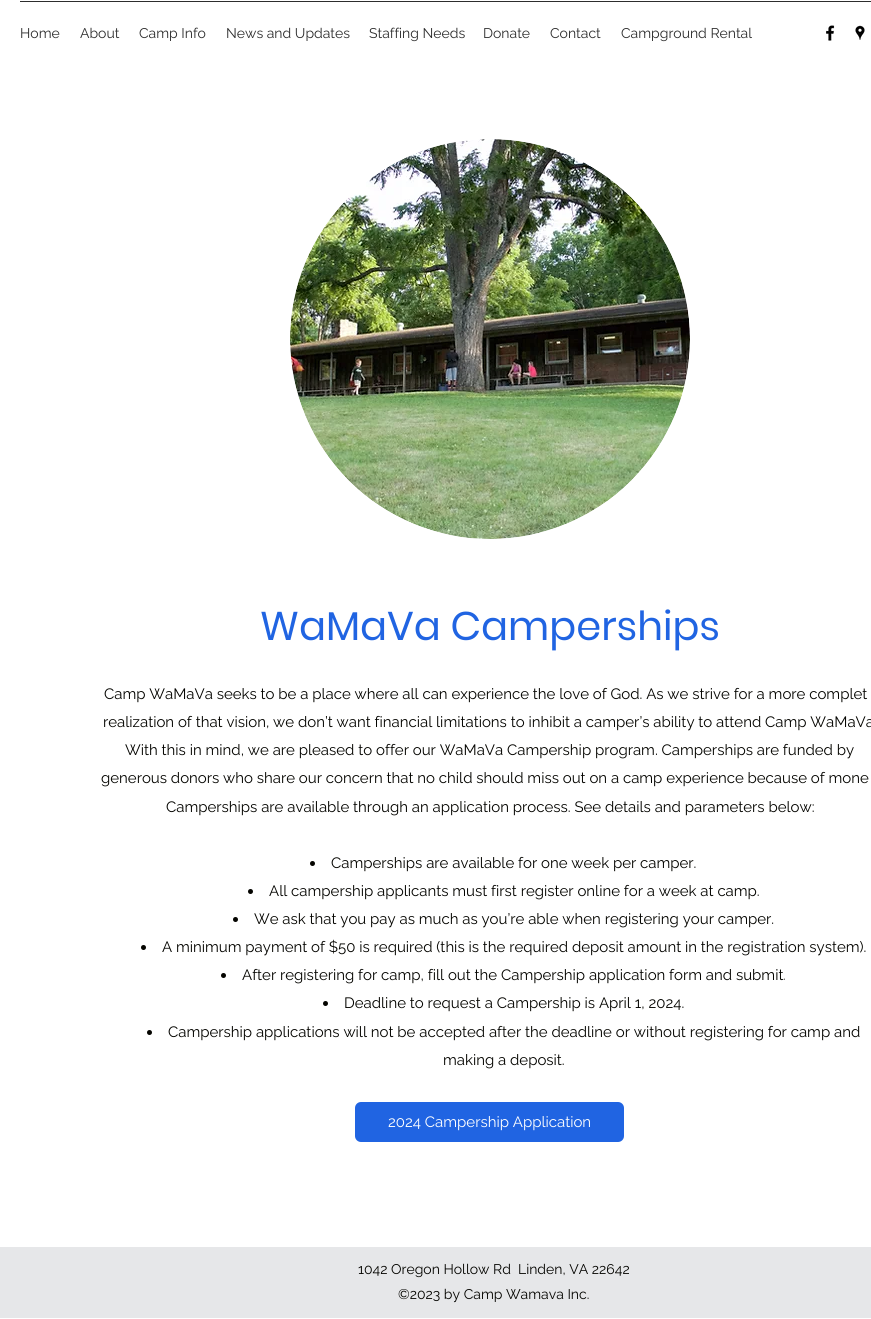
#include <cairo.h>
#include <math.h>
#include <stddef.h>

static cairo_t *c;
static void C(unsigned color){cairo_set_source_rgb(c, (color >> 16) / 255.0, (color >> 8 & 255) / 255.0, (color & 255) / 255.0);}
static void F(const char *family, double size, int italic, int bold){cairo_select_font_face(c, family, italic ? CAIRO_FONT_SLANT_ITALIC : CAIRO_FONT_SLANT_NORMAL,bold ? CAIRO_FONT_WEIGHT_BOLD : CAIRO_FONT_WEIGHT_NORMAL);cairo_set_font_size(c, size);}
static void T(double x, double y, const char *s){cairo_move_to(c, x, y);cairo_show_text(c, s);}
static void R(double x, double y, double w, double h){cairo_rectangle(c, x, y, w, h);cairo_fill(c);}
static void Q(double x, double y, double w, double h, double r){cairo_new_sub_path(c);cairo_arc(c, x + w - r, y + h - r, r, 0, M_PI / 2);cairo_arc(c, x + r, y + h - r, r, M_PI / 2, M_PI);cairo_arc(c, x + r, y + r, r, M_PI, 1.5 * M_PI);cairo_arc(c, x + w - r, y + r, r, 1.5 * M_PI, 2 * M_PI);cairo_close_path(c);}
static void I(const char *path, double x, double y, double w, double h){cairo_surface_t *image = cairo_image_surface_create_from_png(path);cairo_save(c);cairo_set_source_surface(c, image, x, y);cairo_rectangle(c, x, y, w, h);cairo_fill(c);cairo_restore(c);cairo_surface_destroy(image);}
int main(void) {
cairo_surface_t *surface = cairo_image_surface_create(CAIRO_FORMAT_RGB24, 871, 1319);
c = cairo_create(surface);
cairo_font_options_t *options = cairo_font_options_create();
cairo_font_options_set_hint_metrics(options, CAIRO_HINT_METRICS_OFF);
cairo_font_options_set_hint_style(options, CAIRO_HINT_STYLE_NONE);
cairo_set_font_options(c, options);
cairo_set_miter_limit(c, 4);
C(0xffffff);
cairo_paint(c);
C(0x2d2d2d);
R(20,1,851,1);
F("Raleway",14,0,0);
T(20,38,"Home");
T(80,38,"About");
T(139,38,"Camp Info");
T(226,38,"News and Updates");
T(369,38,"Staffing Needs");
T(483,38,"Donate");
T(550,38,"Contact");
T(621,38,"Campground Rental");
I("1.png",826,25,9,16);
I("2.png",855,25,10,15);
I("3.png",290,139,400,400);
F("Poppins",40,0,0);
C(0x2064e2);
T(260,640,"WaMaVa Camperships");
F("Raleway",15,0,0);
C(0x040400);
T(104,699,"Camp WaMaVa seeks to be a place where all can experience the love of God. As we strive for a more complet");
T(103,727,"realization of that vision, we don’t want financial limitations to inhibit a camper’s ability to attend Camp WaMaVa");
T(125,755,"With this in mind, we are pleased to offer our WaMaVa Campership program. Camperships are funded by");
T(101,783,"generous donors who share our concern that no child should miss out on a camp experience because of mone");
T(166,812,"Camperships are available through an application process. See details and parameters below:");
cairo_new_path(c);
cairo_arc(c,312.5,863.5,2.5,0,2 * M_PI);
cairo_fill(c);
T(331,868,"Camperships are available for one week per camper.");
cairo_new_path(c);
cairo_arc(c,250.5,891.5,2.5,0,2 * M_PI);
cairo_fill(c);
T(269,896,"All campership applicants must first register online for a week at camp.");
cairo_new_path(c);
cairo_arc(c,235.5,919.5,2.5,0,2 * M_PI);
cairo_fill(c);
T(254,924,"We ask that you pay as much as you’re able when registering your camper.");
cairo_new_path(c);
cairo_arc(c,143.5,947.5,2.5,0,2 * M_PI);
cairo_fill(c);
T(162,952,"A minimum payment of $50 is required (this is the required deposit amount in the registration system).");
cairo_new_path(c);
cairo_arc(c,223.5,975.5,2.5,0,2 * M_PI);
cairo_fill(c);
T(242,980,"After registering for camp, fill out the Campership application form and submit.");
cairo_new_path(c);
cairo_arc(c,325.5,1003.5,2.5,0,2 * M_PI);
cairo_fill(c);
T(344,1008,"Deadline to request a Campership is April 1, 2024.");
cairo_new_path(c);
cairo_arc(c,149.5,1032.5,2.5,0,2 * M_PI);
cairo_fill(c);
T(168,1037,"Campership applications will not be accepted after the deadline or without registering for camp and");
T(443,1065,"making a deposit.");
C(0x2064e2);
Q(355,1102,269,40,6);
cairo_fill(c);
C(0xffffff);
T(388,1127,"2024 Campership Application");
C(0xe6e7e9);
R(0,1247,871,71);
F("Raleway",14,0,0);
C(0x040400);
T(358,1274,"1042 Oregon Hollow Rd  Linden, VA 22642");
T(398,1299,"©2023 by Camp Wamava Inc.");
cairo_surface_write_to_png(surface, "o.png");
cairo_font_options_destroy(options);
cairo_destroy(c);
cairo_surface_destroy(surface);
return 0;
}
